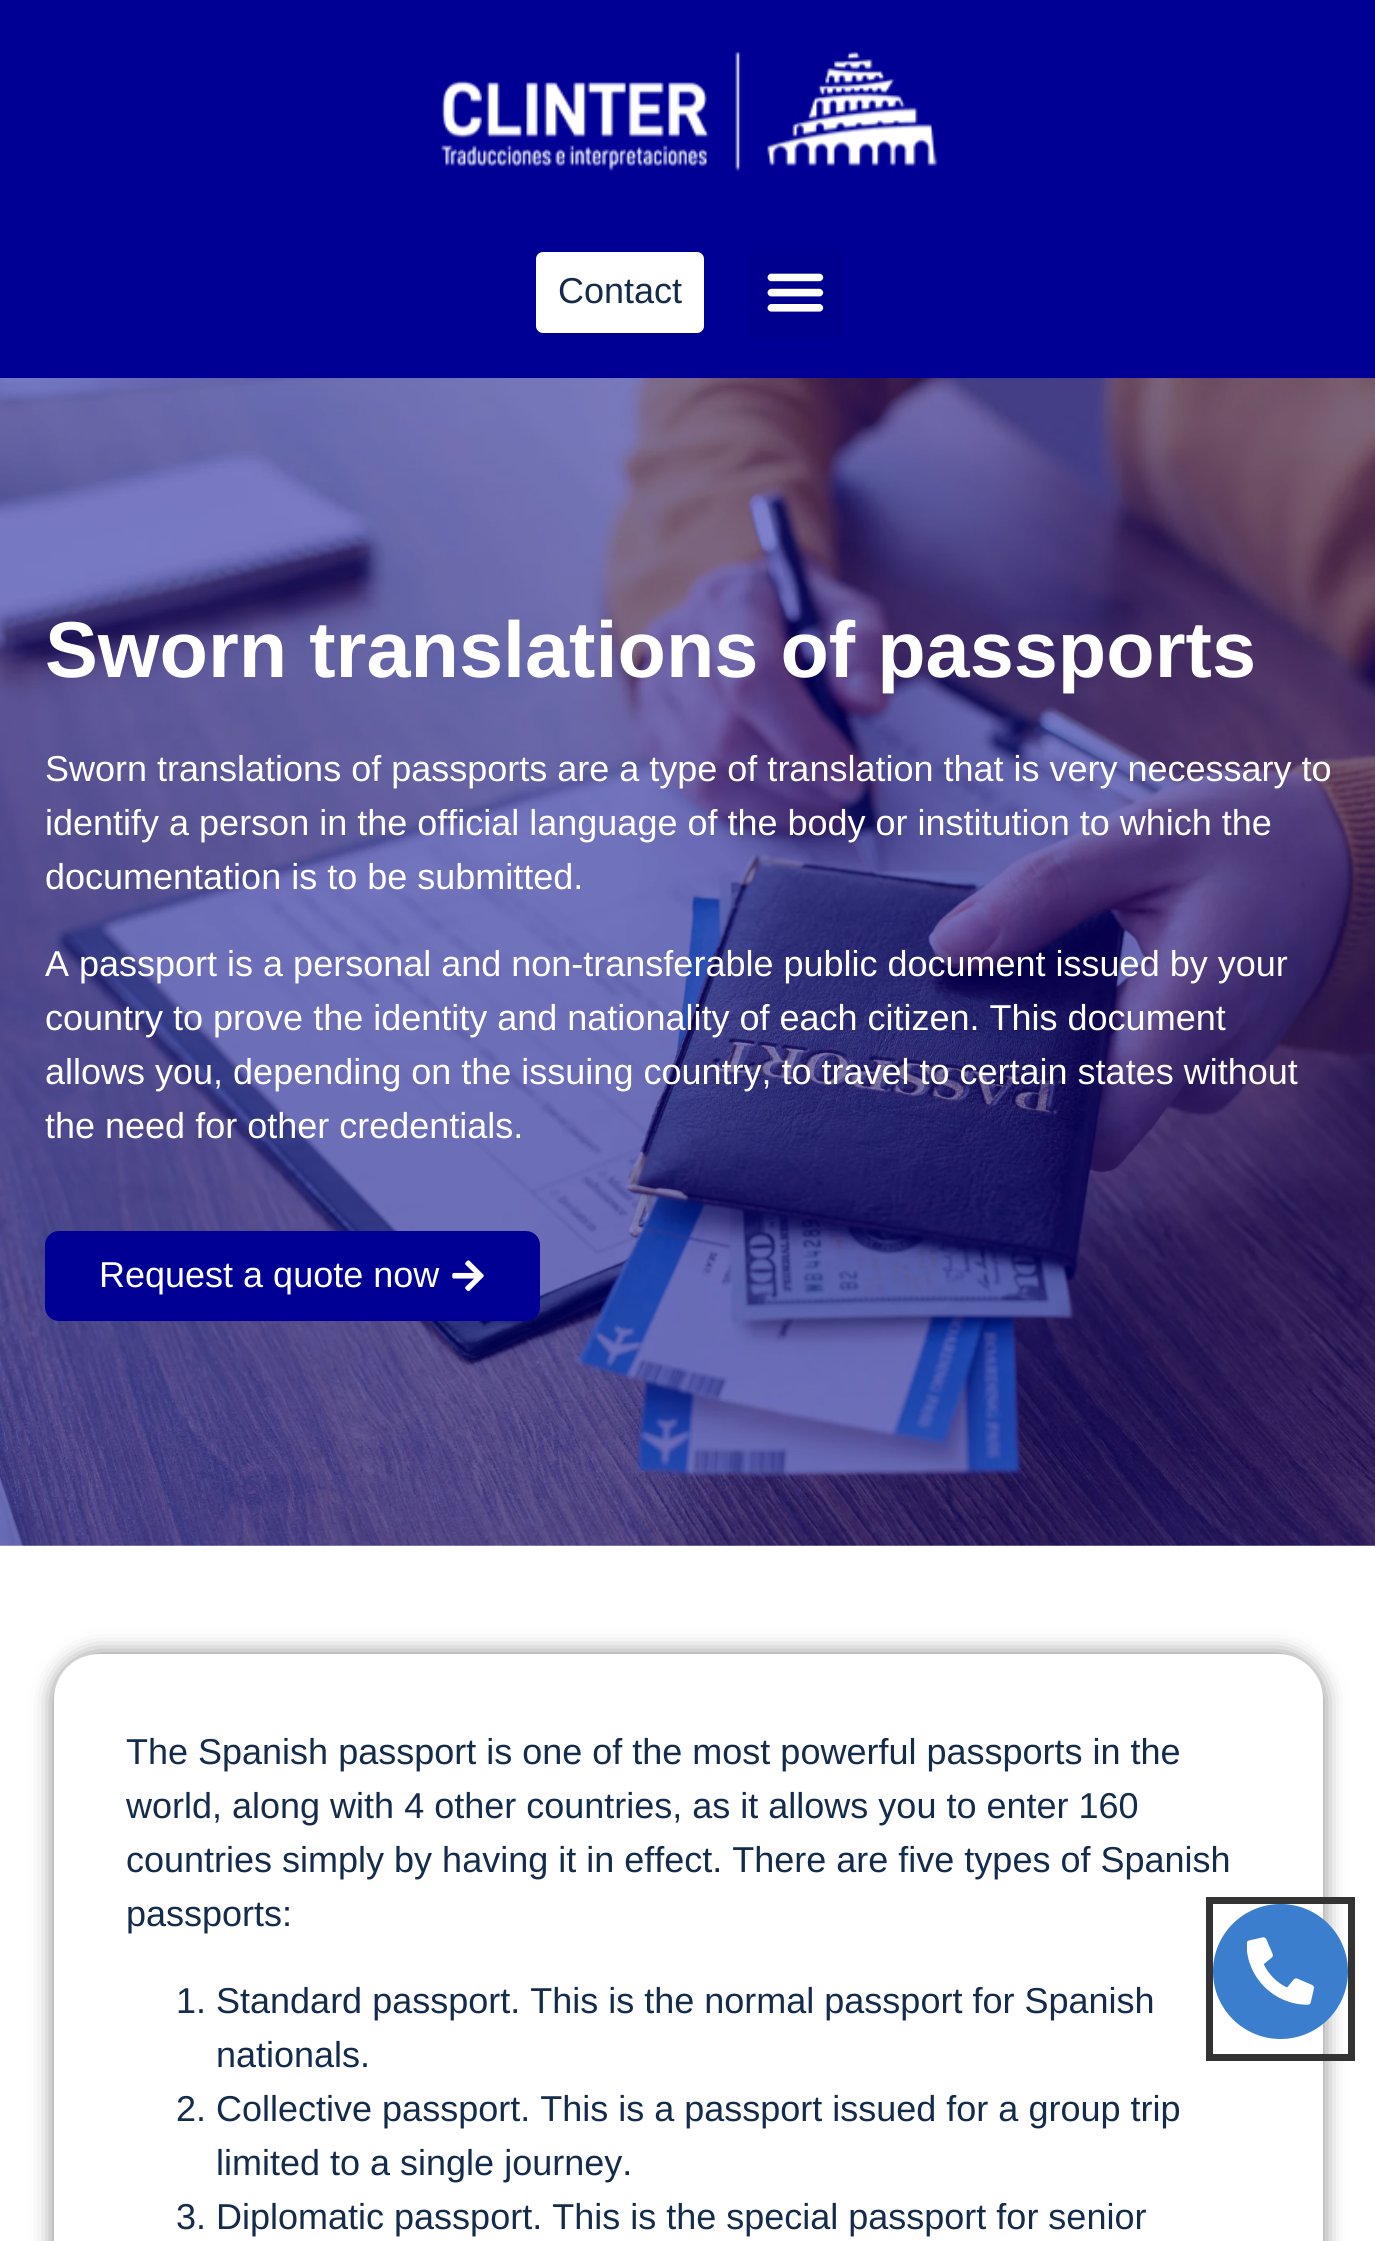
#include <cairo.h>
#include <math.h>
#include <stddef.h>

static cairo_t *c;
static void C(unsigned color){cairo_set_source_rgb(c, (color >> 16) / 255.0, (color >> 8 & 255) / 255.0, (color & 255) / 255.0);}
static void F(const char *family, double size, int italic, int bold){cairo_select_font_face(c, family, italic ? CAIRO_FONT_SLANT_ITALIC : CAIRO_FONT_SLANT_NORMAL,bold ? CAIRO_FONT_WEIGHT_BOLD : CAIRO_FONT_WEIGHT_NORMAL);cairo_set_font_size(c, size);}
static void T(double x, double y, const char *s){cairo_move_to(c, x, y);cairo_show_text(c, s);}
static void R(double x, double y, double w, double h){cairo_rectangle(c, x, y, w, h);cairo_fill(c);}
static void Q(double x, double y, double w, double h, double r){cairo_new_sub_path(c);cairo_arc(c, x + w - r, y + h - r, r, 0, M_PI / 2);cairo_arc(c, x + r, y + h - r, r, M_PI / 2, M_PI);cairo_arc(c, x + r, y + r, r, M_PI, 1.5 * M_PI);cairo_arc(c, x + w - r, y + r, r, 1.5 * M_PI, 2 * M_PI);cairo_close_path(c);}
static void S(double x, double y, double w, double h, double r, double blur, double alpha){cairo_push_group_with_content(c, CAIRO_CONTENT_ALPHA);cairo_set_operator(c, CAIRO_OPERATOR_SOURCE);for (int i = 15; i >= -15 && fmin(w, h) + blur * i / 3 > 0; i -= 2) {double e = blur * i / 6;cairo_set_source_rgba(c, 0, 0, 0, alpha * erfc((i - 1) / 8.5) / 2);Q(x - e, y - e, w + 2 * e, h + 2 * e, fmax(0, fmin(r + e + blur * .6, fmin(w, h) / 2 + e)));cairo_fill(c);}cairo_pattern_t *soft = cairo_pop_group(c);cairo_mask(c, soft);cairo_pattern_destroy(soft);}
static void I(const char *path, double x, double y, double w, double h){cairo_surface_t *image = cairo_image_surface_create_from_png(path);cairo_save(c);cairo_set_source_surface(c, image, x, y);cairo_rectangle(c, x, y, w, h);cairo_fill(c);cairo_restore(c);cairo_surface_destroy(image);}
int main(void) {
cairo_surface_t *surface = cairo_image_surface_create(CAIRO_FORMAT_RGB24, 1375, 2241);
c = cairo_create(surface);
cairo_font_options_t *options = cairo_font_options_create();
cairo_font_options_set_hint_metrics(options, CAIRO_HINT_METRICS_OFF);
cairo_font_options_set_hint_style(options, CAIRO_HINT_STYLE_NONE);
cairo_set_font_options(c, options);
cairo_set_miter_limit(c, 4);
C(0xffffff);
cairo_paint(c);
C(0x000095);
R(0,0,1375,378);
I("1.png",441,51,497,121);
C(0xffffff);
Q(536,252,168,81,7);
cairo_fill(c);
F("Liberation Sans",36,0,0);
C(0x142c4c);
T(558,303,"Contact");
C(0x00008e);
Q(749,248,93,90,7);
cairo_fill(c);
I("2.png",767,273,57,39);
C(0x000000);
S(54,1654,1269,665,45,11,.5);
C(0xffffff);
Q(54,1654,1269,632,45);
cairo_fill(c);
cairo_rectangle(c,1209.5,1900.5,142,157);
C(0x333333);
cairo_set_line_width(c,7);
cairo_stroke(c);
C(0x3b7ece);
cairo_arc(c,1280.5,1971.5,67.5,0,2 * M_PI);
cairo_fill(c);
I("3.png",1247,1937,67,68);
I("4.png",0,378,1375,1168);
F("Liberation Sans",79.25,0,1);
C(0xffffff);
T(45,677,"Sworn translations of passports");
F("Liberation Sans",36,0,0);
T(45,781,"Sworn translations of passports are a type of translation that is very necessary to");
T(45,835,"identify a person in the official language of the body or institution to which the");
T(45,889,"documentation is to be submitted.");
T(45,976,"A passport is a personal and non-transferable public document issued by your");
T(45,1030,"country to prove the identity and nationality of each citizen. This document");
T(45,1084,"allows you, depending on the issuing country, to travel to certain states without");
T(45,1138,"the need for other credentials.");
C(0x000095);
Q(45,1231,495,90,14);
cairo_fill(c);
C(0xffffff);
T(99,1287,"Request a quote now");
I("5.png",452,1260,32,32);
C(0x142c4c);
T(126,1764,"The Spanish passport is one of the most powerful passports in the");
T(126,1818,"world, along with 4 other countries, as it allows you to enter 160");
T(126,1872,"countries simply by having it in effect. There are five types of Spanish");
T(126,1926,"passports:");
T(176,2013,"1. Standard passport. This is the normal passport for Spanish");
T(216,2067,"nationals.");
T(176,2121,"2. Collective passport. This is a passport issued for a group trip");
T(216,2175,"limited to a single journey.");
T(176,2229,"3. Diplomatic passport. This is the special passport for senior");
cairo_surface_write_to_png(surface, "o.png");
cairo_font_options_destroy(options);
cairo_destroy(c);
cairo_surface_destroy(surface);
return 0;
}
